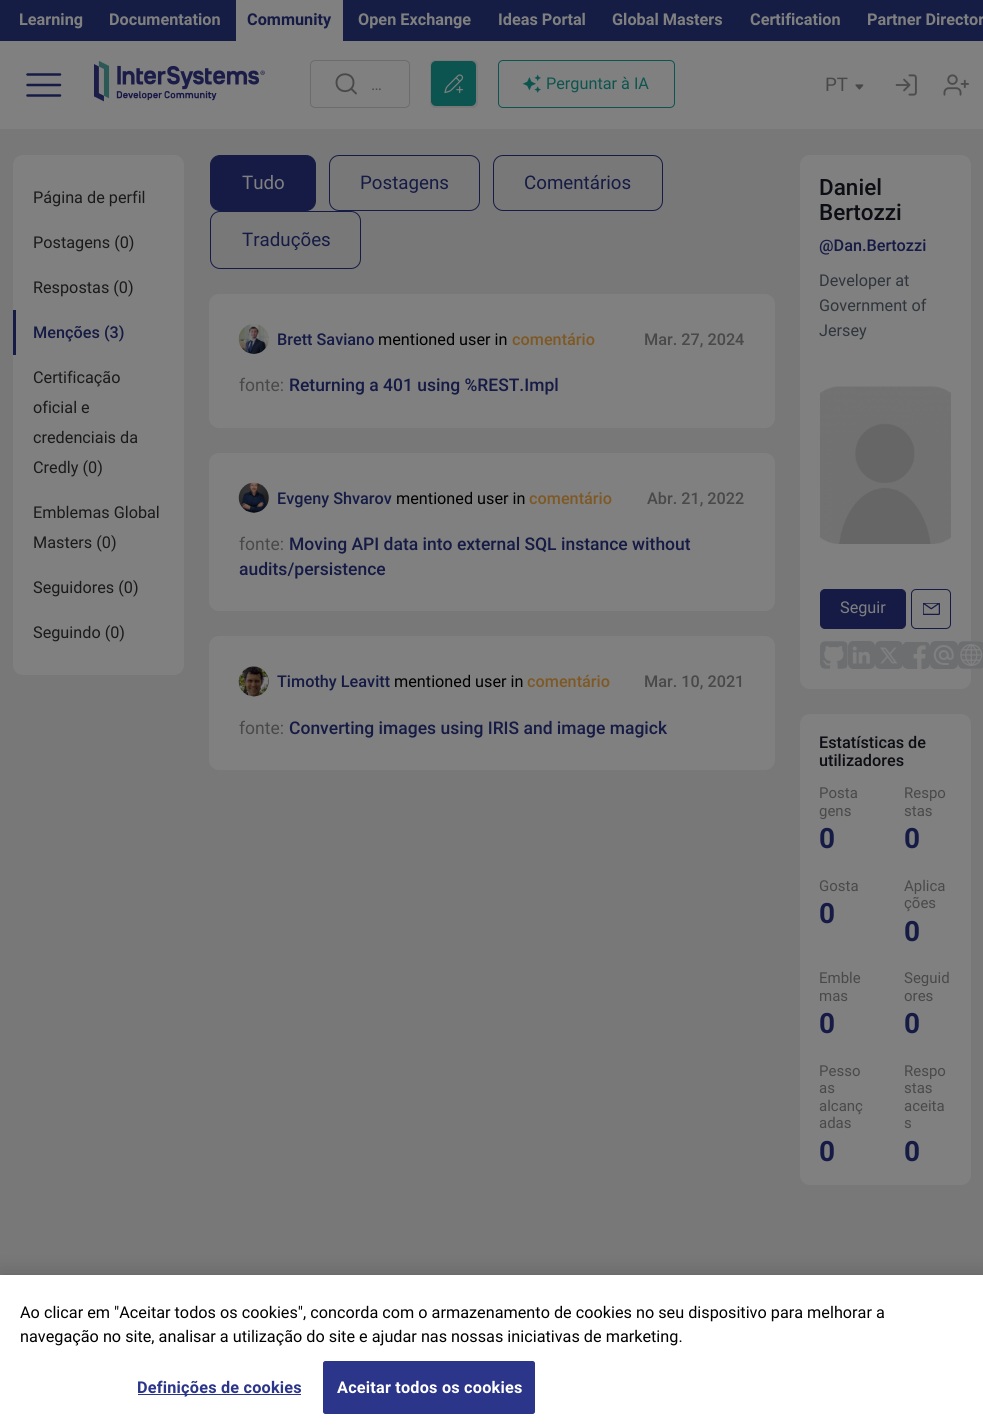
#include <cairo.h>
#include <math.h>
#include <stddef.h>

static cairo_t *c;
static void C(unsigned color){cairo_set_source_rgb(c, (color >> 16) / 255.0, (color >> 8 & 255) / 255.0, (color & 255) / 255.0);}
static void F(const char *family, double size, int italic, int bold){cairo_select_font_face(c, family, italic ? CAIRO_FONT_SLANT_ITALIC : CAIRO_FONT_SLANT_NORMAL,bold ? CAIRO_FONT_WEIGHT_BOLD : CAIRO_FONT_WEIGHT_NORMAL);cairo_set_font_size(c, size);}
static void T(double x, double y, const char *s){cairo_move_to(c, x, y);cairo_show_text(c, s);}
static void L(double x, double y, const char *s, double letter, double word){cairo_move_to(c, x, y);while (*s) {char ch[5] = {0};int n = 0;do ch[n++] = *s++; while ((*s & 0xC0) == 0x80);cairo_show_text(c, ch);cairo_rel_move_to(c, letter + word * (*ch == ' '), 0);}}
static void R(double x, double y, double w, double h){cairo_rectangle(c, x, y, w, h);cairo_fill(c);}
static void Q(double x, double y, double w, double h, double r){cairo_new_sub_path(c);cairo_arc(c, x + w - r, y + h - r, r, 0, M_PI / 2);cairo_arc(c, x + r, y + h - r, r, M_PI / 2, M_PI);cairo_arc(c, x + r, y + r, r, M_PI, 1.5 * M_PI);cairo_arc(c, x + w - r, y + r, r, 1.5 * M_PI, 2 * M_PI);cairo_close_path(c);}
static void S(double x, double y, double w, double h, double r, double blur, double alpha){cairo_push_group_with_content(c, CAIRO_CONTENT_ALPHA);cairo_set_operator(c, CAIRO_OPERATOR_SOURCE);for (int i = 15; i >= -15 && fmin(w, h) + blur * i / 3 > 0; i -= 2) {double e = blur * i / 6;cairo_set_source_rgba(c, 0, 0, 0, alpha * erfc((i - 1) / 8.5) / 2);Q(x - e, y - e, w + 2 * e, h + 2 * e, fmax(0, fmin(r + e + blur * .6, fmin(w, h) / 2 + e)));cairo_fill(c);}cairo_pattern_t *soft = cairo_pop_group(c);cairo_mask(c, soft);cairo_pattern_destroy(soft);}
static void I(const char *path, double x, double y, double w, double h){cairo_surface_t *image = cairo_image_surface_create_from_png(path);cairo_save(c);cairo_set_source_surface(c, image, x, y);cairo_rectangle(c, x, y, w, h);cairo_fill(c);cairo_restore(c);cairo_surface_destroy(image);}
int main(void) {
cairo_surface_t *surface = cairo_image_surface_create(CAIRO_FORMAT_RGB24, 983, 1426);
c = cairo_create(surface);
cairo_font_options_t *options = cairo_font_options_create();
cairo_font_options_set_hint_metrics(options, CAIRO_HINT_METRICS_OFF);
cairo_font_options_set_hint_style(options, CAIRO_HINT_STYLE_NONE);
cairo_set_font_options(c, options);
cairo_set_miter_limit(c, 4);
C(0x787879);
cairo_paint(c);
C(0x808080);
R(0,41,983,88);
C(0x151d44);
R(0,0,983,41);
F("Roboto",16.25,0,1);
C(0x808080);
T(19,25,"Learning");
T(109,25,"Documentation");
R(236,0,107,41);
C(0x161b45);
T(247,25,"Community");
C(0x808080);
T(358,25,"Open Exchange");
T(498,25,"Ideas Portal");
T(612,25,"Global Masters");
T(750,25,"Certification");
T(867,25,"Partner Director");
cairo_new_path(c);
cairo_move_to(c,27.5,85);
cairo_line_to(c,60,85);
cairo_move_to(c,27.5,74.5);
cairo_line_to(c,60,74.5);
cairo_move_to(c,27.5,95.5);
cairo_line_to(c,60,95.5);
C(0x161b45);
cairo_set_line_width(c,2.5);
cairo_set_line_cap(c,CAIRO_LINE_CAP_ROUND);
cairo_set_line_join(c,CAIRO_LINE_JOIN_ROUND);
cairo_stroke(c);
I("1.png",94,61,171,41);
cairo_new_path(c);
cairo_move_to(c,356,93.5);
cairo_line_to(c,351,88.5);
cairo_move_to(c,353.5,82.5);
cairo_curve_to(c,353.5,94,336.5,94,336.5,82.5);
cairo_curve_to(c,336.5,71.5,353.5,71.5,353.5,82.5);
cairo_close_path(c);
C(0x494949);
cairo_set_line_width(c,1.9);
cairo_stroke(c);
Q(310.5,60.5,99,47,4.5);
C(0x6c6c6c);
cairo_set_line_width(c,1);
cairo_set_line_cap(c,CAIRO_LINE_CAP_BUTT);
cairo_set_line_join(c,CAIRO_LINE_JOIN_MITER);
cairo_stroke(c);
F("Roboto",16.25,0,0);
C(0x494949);
T(371,90,"…");
C(0x787878);
Q(430,60,48,48,5);
cairo_fill(c);
I("2.png",431,61,45,45);
I("3.png",522,74,19,19);
Q(498.5,60.5,176,47,4.5);
C(0x0c554f);
cairo_stroke(c);
T(546,89,"Perguntar à IA");
F("Roboto",18.75,0,0);
C(0x494949);
T(825,91,"PT");
I("4.png",855,84,9,6);
I("5.png",895,74,22,22);
I("6.png",943,74,26,22);
C(0x808080);
Q(13,155,171,520,10);
cairo_fill(c);
F("Roboto",16.25,0,0);
C(0x1a1a1a);
T(33,203,"Página de perfil");
T(33,248,"Postagens (0)");
T(33,293,"Respostas (0)");
C(0x161b45);
R(13,310,3,45);
F("Roboto Medium",16.25,0,0);
T(33,338,"Menções (3)");
F("Roboto",16.25,0,0);
C(0x1a1a1a);
T(33,383,"Certificação");
T(33,413,"oficial e");
T(33,443,"credenciais da");
T(33,473,"Credly (0)");
T(33,518,"Emblemas Global");
T(33,548,"Masters (0)");
T(33,593,"Seguidores (0)");
T(33,638,"Seguindo (0)");
C(0x161b45);
Q(210.5,155.5,105,55,9.5);
cairo_fill_preserve(c);
cairo_stroke(c);
F("Roboto",18.75,0,0);
C(0x808080);
T(242,189,"Tudo");
Q(329.5,155.5,150,55,9.5);
C(0x161b45);
cairo_stroke(c);
T(360,189,"Postagens");
Q(493.5,155.5,169,55,9.5);
cairo_stroke(c);
T(524,189,"Comentários");
Q(210.5,211.5,150,57,9.5);
cairo_stroke(c);
T(242,246,"Traduções");
C(0x808080);
Q(209,294,566,134,10);
cairo_fill(c);
I("7.png",238,324,31,30);
F("Roboto Medium",16.25,0,0);
C(0x161b45);
T(277,345,"Brett Saviano");
F("Roboto",16.25,0,0);
C(0x000000);
T(378,345,"mentioned user in");
F("Roboto Medium",16.25,0,0);
C(0x7e5925);
T(512,345,"comentário");
C(0x494949);
T(644,345,"Mar. 27, 2024");
F("Roboto",17.5,0,0);
T(239,391,"fonte:");
F("Roboto Medium",17.5,0,0);
C(0x161b45);
T(289,391,"Returning a 401 using %REST.Impl");
C(0x808080);
Q(209,453,566,158,10);
cairo_fill(c);
I("8.png",238,482,31,31);
F("Roboto Medium",16.25,0,0);
C(0x161b45);
T(277,504,"Evgeny Shvarov");
F("Roboto",16.25,0,0);
C(0x000000);
T(396,504,"mentioned user in");
F("Roboto Medium",16.25,0,0);
C(0x7e5925);
T(529,504,"comentário");
C(0x494949);
T(647,504,"Abr. 21, 2022");
F("Roboto",17.5,0,0);
T(239,550,"fonte:");
F("Roboto Medium",17.5,0,0);
C(0x161b45);
T(289,550,"Moving API data into external SQL instance without");
T(239,575,"audits/persistence");
C(0x808080);
Q(209,636,566,134,10);
cairo_fill(c);
I("9.png",238,666,31,31);
F("Roboto Medium",16.25,0,0);
C(0x161b45);
T(277,687,"Timothy Leavitt");
F("Roboto",16.25,0,0);
C(0x000000);
T(394,687,"mentioned user in");
F("Roboto Medium",16.25,0,0);
C(0x7e5925);
T(527,687,"comentário");
C(0x494949);
T(644,687,"Mar. 10, 2021");
F("Roboto",17.5,0,0);
T(239,734,"fonte:");
F("Roboto Medium",17.5,0,0);
C(0x161b45);
T(289,734,"Converting images using IRIS and image magick");
C(0x808080);
Q(800,155,171,534,10);
cairo_fill(c);
F("Roboto Medium",22.5,0,0);
C(0x0d0e14);
T(819,195,"Daniel");
T(819,220,"Bertozzi");
F("Roboto Medium",16.25,0,0);
C(0x161b45);
T(819,251,"@Dan.Bertozzi");
F("Roboto",16.25,0,0);
C(0x2f353c);
T(819,286,"Developer at");
T(819,311,"Government of");
T(819,336,"Jersey");
I("10.png",820,386,131,158);
C(0x161b45);
Q(820.5,589.5,85,39,4.5);
cairo_fill_preserve(c);
cairo_stroke(c);
C(0x808080);
T(840,613,"Seguir");
I("11.png",923,603,17,12);
Q(911.5,589.5,39,39,4.5);
C(0x161b45);
cairo_stroke(c);
I("12.png",820,641,28,28);
I("13.png",848,641,27,28);
I("14.png",875,641,28,28);
I("15.png",903,642,27,27);
I("16.png",930,641,28,28);
I("17.png",958,641,25,28);
C(0x808080);
Q(800,714,171,471,10);
cairo_fill(c);
F("Roboto Medium",16.25,0,0);
C(0x0d0e14);
T(819,748,"Estatísticas de");
T(819,766,"utilizadores");
F("Roboto",15,0,0);
C(0x494949);
T(819,798,"Posta");
T(819,816,"gens");
F("Roboto",28,0,1);
C(0x161b45);
T(819,848,"0");
F("Roboto",15,0,0);
C(0x494949);
T(904,798,"Respo");
T(904,816,"stas");
F("Roboto",28,0,1);
C(0x161b45);
T(904,848,"0");
F("Roboto",15,0,0);
C(0x494949);
T(819,891,"Gosta");
F("Roboto",28,0,1);
C(0x161b45);
T(819,923,"0");
F("Roboto",15,0,0);
C(0x494949);
T(904,891,"Aplica");
T(904,908,"ções");
F("Roboto",28,0,1);
C(0x161b45);
T(904,941,"0");
F("Roboto",15,0,0);
C(0x494949);
T(819,983,"Emble");
T(819,1001,"mas");
F("Roboto",28,0,1);
C(0x161b45);
T(819,1033,"0");
F("Roboto",15,0,0);
C(0x494949);
T(904,983,"Seguid");
T(904,1001,"ores");
F("Roboto",28,0,1);
C(0x161b45);
T(904,1033,"0");
F("Roboto",15,0,0);
C(0x494949);
T(819,1076,"Pesso");
T(819,1093,"as");
T(819,1111,"alcanç");
T(819,1128,"adas");
F("Roboto",28,0,1);
C(0x161b45);
T(819,1161,"0");
F("Roboto",15,0,0);
C(0x494949);
T(904,1076,"Respo");
T(904,1093,"stas");
T(904,1111,"aceita");
T(904,1128,"s");
F("Roboto",28,0,1);
C(0x161b45);
T(904,1161,"0");
C(0x000000);
S(0,1275,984,151,0,11,.2);
C(0xffffff);
R(0,1275,983,151);
F("Roboto",16.25,0,0);
C(0x000000);
T(20,1318,"Ao clicar em \"Aceitar todos os cookies\", concorda com o armazenamento de cookies no seu dispositivo para melhorar a");
T(20,1342,"navegação no site, analisar a utilização do site e ajudar nas nossas iniciativas de marketing.");
C(0x2b3589);
R(138,1394,163,1);
F("Roboto",16.25,0,1);
L(137,1393,"Definições de cookies",.2,0);
Q(323.5,1361.5,211,52,2);
cairo_fill_preserve(c);
cairo_stroke(c);
C(0xffffff);
L(337,1393,"Aceitar todos os cookies",.2,0);
cairo_surface_write_to_png(surface, "o.png");
cairo_font_options_destroy(options);
cairo_destroy(c);
cairo_surface_destroy(surface);
return 0;
}
